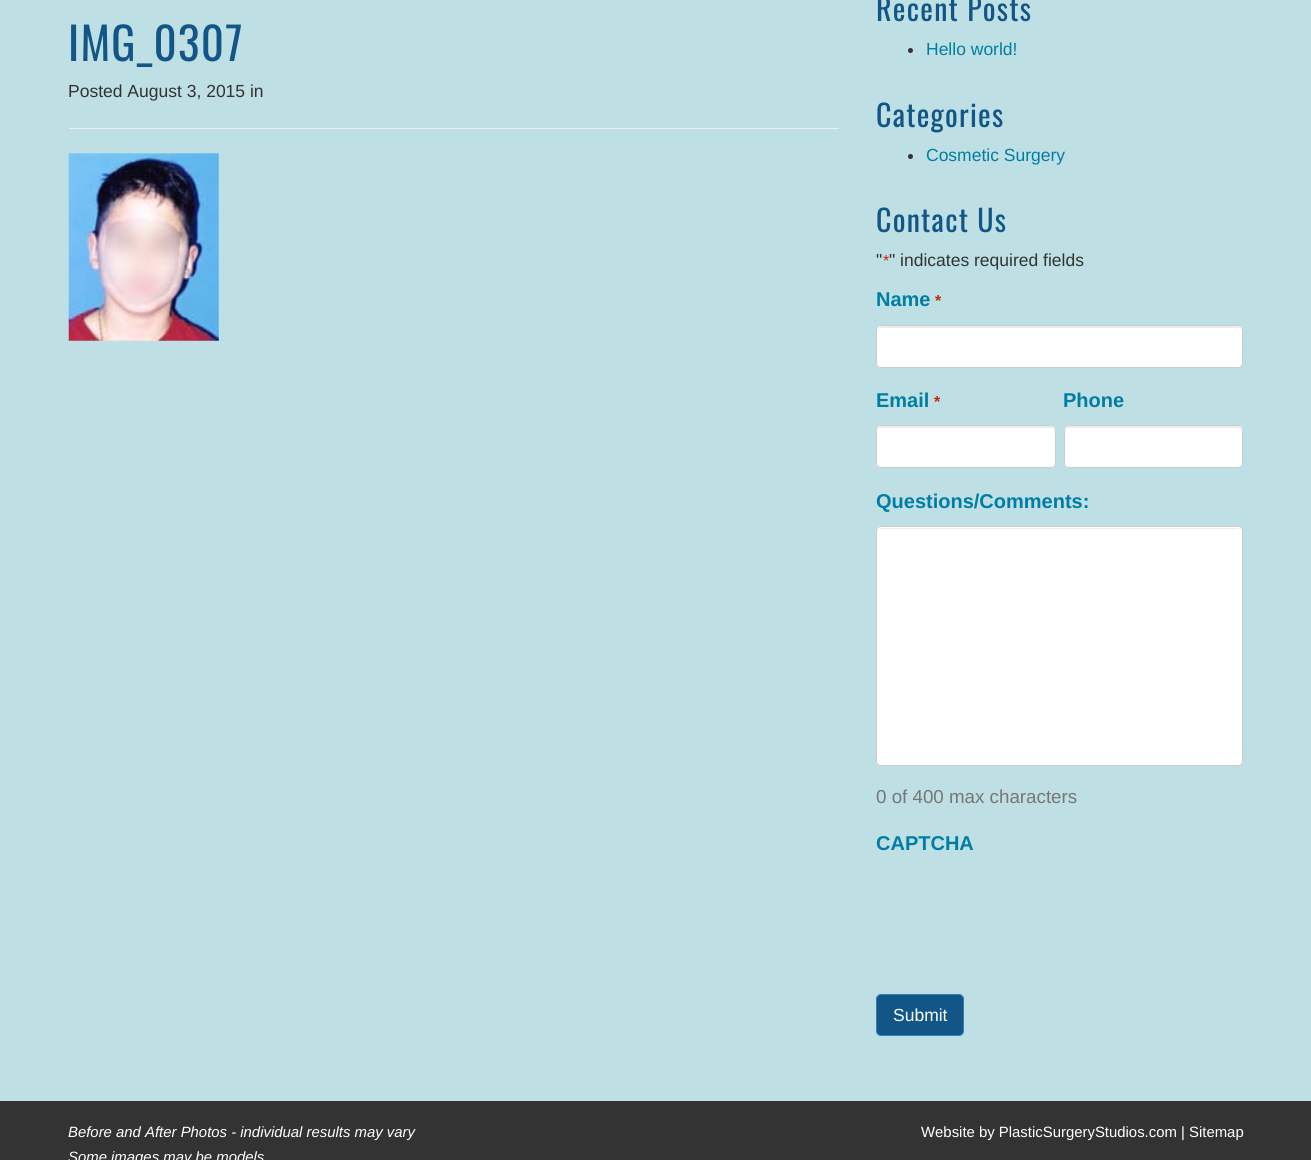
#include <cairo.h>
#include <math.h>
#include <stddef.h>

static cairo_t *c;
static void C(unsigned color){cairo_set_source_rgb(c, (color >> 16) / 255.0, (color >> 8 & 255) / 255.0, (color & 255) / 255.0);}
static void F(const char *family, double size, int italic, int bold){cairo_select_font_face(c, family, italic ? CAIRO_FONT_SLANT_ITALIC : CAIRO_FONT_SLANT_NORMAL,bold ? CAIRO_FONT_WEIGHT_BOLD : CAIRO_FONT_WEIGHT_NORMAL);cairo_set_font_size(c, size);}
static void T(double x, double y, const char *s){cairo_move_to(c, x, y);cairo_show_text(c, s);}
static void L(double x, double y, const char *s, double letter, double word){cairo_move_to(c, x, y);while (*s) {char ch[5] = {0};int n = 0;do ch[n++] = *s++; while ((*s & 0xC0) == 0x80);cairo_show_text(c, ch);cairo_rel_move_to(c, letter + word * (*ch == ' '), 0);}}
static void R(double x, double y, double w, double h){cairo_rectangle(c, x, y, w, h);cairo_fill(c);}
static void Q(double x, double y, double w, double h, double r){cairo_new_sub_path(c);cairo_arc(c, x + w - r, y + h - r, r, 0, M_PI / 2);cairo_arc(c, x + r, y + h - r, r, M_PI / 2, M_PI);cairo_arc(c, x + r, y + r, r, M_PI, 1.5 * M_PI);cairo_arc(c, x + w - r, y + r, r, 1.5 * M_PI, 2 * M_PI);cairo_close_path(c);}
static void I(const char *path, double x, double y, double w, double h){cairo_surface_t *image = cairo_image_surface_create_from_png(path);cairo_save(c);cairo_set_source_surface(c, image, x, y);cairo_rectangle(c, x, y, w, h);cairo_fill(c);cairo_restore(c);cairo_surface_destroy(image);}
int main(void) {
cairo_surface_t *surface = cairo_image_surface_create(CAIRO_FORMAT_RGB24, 1311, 1160);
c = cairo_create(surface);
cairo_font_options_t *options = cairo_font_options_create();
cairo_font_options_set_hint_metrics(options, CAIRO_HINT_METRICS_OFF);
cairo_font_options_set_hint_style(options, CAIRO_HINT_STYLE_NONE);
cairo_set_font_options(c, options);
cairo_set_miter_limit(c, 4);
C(0xbedfe3);
cairo_paint(c);
C(0xeeeeee);
R(69,128,770,1);
F("Oswald",45,0,0);
C(0x125687);
L(68,61,"IMG_0307",1.25,0);
F("Liberation Sans",17.5,0,0);
C(0x333333);
T(68,97,"Posted August 3, 2015 in");
I("1.png",68,153,151,188);
F("Oswald",30,0,0);
C(0x125687);
L(876,21,"Recent Posts",1.25,0);
C(0x333333);
cairo_new_path(c);
cairo_arc(c,910.5,50.5,2.5,0,2 * M_PI);
cairo_fill(c);
F("Liberation Sans",17.5,0,0);
C(0x007da4);
T(926,55,"Hello world!");
F("Oswald",30,0,0);
C(0x125687);
L(876,127,"Categories",1.25,0);
C(0x333333);
cairo_new_path(c);
cairo_arc(c,910.5,156.5,2.5,0,2 * M_PI);
cairo_fill(c);
F("Liberation Sans",17.5,0,0);
C(0x007da4);
T(926,161,"Cosmetic Surgery");
F("Oswald",30,0,0);
C(0x125687);
L(876,232,"Contact Us",1.25,0);
F("Liberation Sans",17.5,0,0);
C(0x333333);
T(876,266,"\"");
F("Liberation Sans",16,0,0);
C(0xc02b0a);
T(883,266,"*");
F("Liberation Sans",17.5,0,0);
C(0x333333);
T(889,266,"\" indicates required fields");
F("Liberation Sans",20,0,1);
C(0x007da4);
T(876,306,"Name");
F("Liberation Sans",16,0,1);
C(0xc02b0a);
T(935,306,"*");
C(0xffffff);
Q(876,325,367,43,5);
cairo_fill(c);
C(0xececec);
cairo_new_path(c);
cairo_move_to(c,881,328);
cairo_line_to(c,1238,328);
cairo_curve_to(c,1240,328,1241,329,1241,331);
cairo_curve_to(c,1241,328,1240,326,1237,326);
cairo_line_to(c,881,326);
cairo_line_to(c,879,328);
cairo_line_to(c,878,331);
cairo_curve_to(c,878,329,879,328,881,328);
cairo_close_path(c);
cairo_fill(c);
Q(876.5,325.5,366,42,4.5);
C(0xcccccc);
cairo_set_line_width(c,1);
cairo_stroke(c);
F("Liberation Sans",20,0,1);
C(0x007da4);
T(876,407,"Email");
F("Liberation Sans",16,0,1);
C(0xc02b0a);
T(934,407,"*");
C(0xffffff);
Q(876,425,180,43,5);
cairo_fill(c);
C(0xececec);
cairo_new_path(c);
cairo_move_to(c,881,428);
cairo_line_to(c,1051,428);
cairo_curve_to(c,1053,428,1055,429,1055,431);
cairo_line_to(c,1055,430);
cairo_curve_to(c,1055,428,1053,426,1051,426);
cairo_line_to(c,882,426);
cairo_curve_to(c,880,426,878,428,878,430);
cairo_line_to(c,878,431);
cairo_curve_to(c,878,429,879,428,881,428);
cairo_close_path(c);
cairo_fill(c);
Q(876.5,425.5,179,42,4.5);
C(0xcccccc);
cairo_stroke(c);
F("Liberation Sans",20,0,1);
C(0x007da4);
T(1063,407,"Phone");
C(0xffffff);
Q(1064,425,179,43,5);
cairo_fill(c);
C(0xececec);
cairo_new_path(c);
cairo_move_to(c,1069,428);
cairo_line_to(c,1238,428);
cairo_curve_to(c,1240,428,1241,429,1241,431);
cairo_line_to(c,1241,430);
cairo_curve_to(c,1241,428,1239,426,1237,426);
cairo_line_to(c,1069,426);
cairo_curve_to(c,1067,426,1065,428,1065,430);
cairo_line_to(c,1065,431);
cairo_curve_to(c,1065,429,1067,428,1069,428);
cairo_close_path(c);
cairo_fill(c);
Q(1064.5,425.5,178,42,4.5);
C(0xcccccc);
cairo_stroke(c);
C(0x007da4);
T(876,508,"Questions/Comments:");
C(0xffffff);
Q(876,526,367,240,5);
cairo_fill(c);
C(0xececec);
cairo_new_path(c);
cairo_move_to(c,881,529);
cairo_line_to(c,1239,529);
cairo_line_to(c,1240,530);
cairo_curve_to(c,1240,529,1238,528,1237,528);
cairo_line_to(c,882,528);
cairo_curve_to(c,881,528,879,529,879,530);
cairo_close_path(c);
cairo_fill(c);
Q(876.5,526.5,366,239,4.5);
C(0xcccccc);
cairo_stroke(c);
F("Liberation Sans",18.75,0,0);
C(0x767676);
T(876,803,"0 of 400 max characters");
F("Liberation Sans",20,0,1);
C(0x007da4);
T(876,850,"CAPTCHA");
C(0x125687);
Q(876.5,994.5,87,41,4.5);
cairo_fill_preserve(c);
C(0x357ebd);
cairo_stroke(c);
F("Liberation Sans",17.5,0,0);
C(0xffffff);
T(893,1021,"Submit");
C(0x333333);
R(0,1101,1311,59);
F("Liberation Sans",14.9,1,0);
C(0xffffff);
T(68,1137,"Before and After Photos - individual results may vary");
T(68,1162,"Some images may be models");
F("Liberation Sans",14.9,0,0);
T(921,1137,"Website by PlasticSurgeryStudios.com | Sitemap");
cairo_surface_write_to_png(surface, "o.png");
cairo_font_options_destroy(options);
cairo_destroy(c);
cairo_surface_destroy(surface);
return 0;
}
